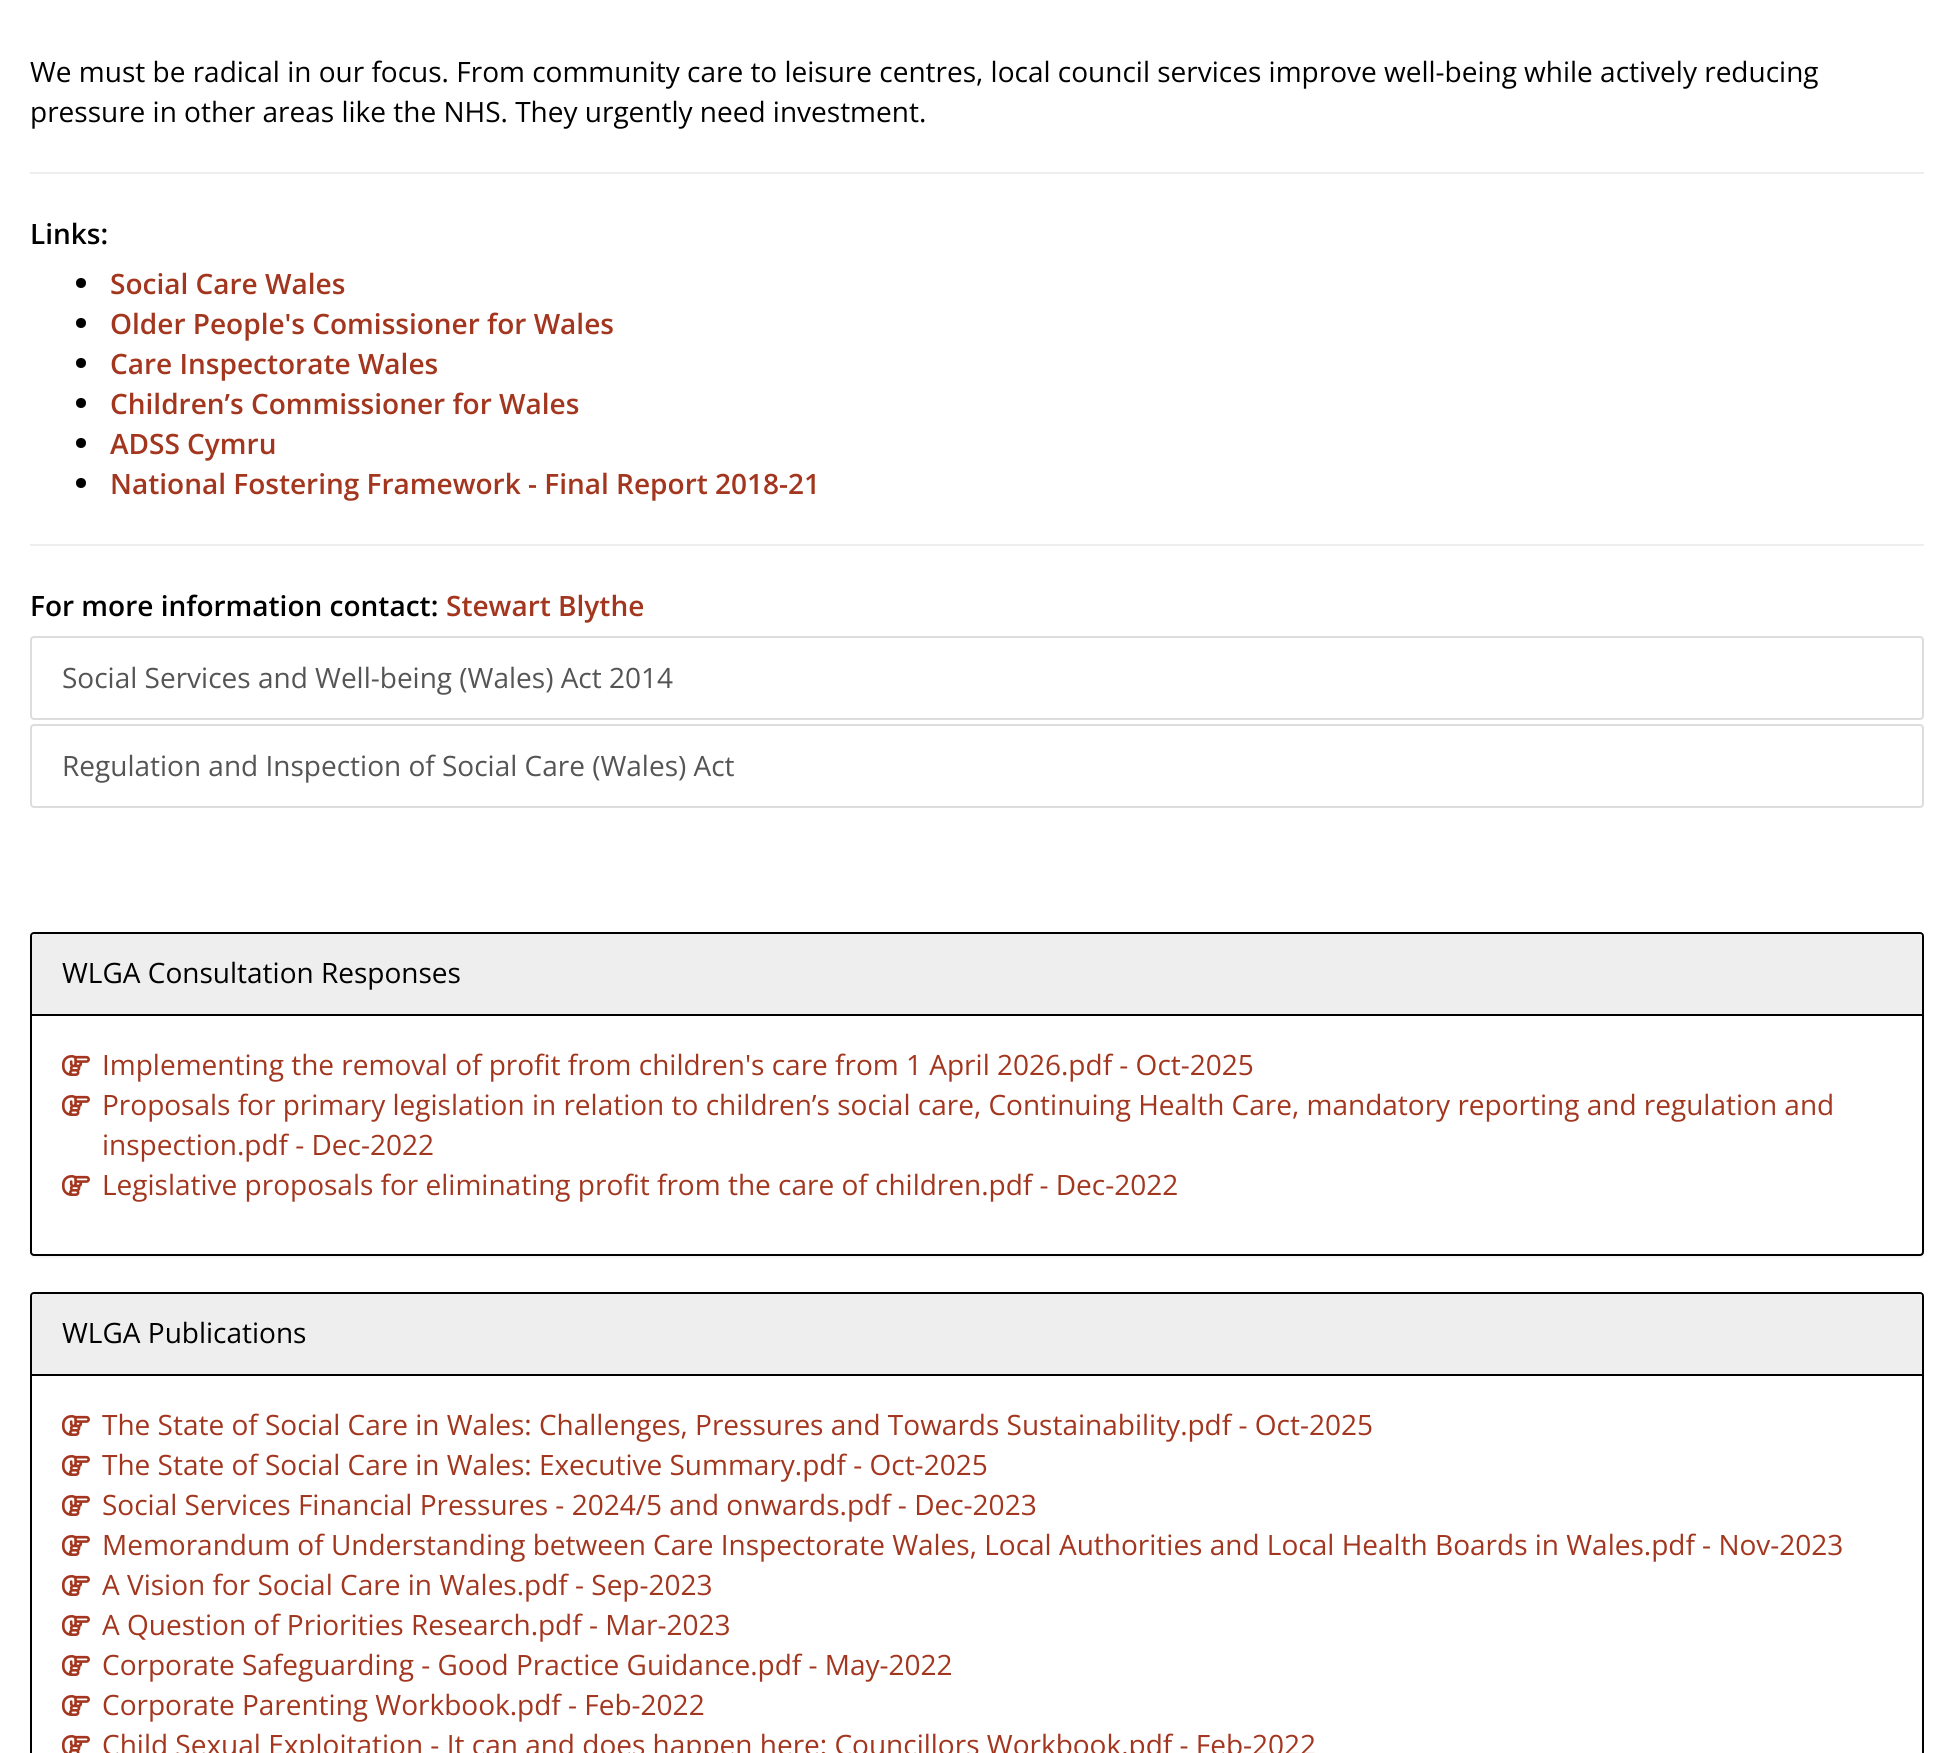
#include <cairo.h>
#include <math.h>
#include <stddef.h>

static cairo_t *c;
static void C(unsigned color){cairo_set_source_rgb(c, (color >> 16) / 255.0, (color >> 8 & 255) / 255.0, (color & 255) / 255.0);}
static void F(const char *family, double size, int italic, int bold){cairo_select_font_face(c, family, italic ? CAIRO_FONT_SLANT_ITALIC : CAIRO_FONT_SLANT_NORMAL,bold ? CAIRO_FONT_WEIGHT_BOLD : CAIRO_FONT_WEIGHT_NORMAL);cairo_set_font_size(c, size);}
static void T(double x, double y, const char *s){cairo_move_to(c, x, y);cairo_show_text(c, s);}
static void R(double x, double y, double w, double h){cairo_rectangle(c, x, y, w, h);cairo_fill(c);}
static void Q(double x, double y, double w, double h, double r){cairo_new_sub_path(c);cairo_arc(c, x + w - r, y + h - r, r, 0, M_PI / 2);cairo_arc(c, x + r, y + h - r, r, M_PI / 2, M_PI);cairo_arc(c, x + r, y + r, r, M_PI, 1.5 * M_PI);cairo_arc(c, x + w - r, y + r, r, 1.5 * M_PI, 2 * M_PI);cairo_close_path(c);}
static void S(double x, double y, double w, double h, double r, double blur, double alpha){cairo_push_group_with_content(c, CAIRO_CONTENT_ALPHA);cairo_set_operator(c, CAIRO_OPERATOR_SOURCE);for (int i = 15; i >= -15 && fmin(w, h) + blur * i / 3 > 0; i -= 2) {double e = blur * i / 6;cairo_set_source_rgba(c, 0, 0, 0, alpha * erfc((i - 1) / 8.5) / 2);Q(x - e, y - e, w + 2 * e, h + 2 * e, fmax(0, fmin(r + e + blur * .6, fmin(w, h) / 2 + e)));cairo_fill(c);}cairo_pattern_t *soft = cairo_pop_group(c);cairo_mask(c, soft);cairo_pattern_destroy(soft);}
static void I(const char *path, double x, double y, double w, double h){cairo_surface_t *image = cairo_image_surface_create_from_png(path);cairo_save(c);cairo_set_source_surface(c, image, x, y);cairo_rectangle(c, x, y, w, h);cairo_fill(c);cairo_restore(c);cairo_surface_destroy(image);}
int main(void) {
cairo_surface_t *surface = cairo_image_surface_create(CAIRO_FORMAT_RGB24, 1953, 1753);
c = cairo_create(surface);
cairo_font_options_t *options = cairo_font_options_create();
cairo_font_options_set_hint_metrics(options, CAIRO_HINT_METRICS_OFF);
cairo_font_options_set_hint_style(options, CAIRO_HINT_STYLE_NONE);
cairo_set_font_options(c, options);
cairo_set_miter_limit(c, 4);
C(0xffffff);
cairo_paint(c);
F("Open Sans",28,0,0);
C(0x000000);
T(30,82,"We must be radical in our focus. From community care to leisure centres, local council services improve well-being while actively reducing");
T(30,122,"pressure in other areas like the NHS. They urgently need investment.");
C(0xeeeeee);
R(30,172,1894,2);
F("Open Sans SemiBold",28,0,0);
C(0x000000);
T(30,244,"Links:");
cairo_new_path(c);
cairo_arc(c,81,283,5,0,2 * M_PI);
cairo_fill(c);
C(0xa3361f);
T(110,294,"Social Care Wales");
C(0x000000);
cairo_new_path(c);
cairo_arc(c,81,323,5,0,2 * M_PI);
cairo_fill(c);
C(0xa3361f);
T(110,334,"Older People's Comissioner for Wales");
C(0x000000);
cairo_new_path(c);
cairo_arc(c,81,363,5,0,2 * M_PI);
cairo_fill(c);
C(0xa3361f);
T(110,374,"Care Inspectorate Wales");
C(0x000000);
cairo_new_path(c);
cairo_arc(c,81,403,5,0,2 * M_PI);
cairo_fill(c);
C(0xa3361f);
T(110,414,"Children’s Commissioner for Wales");
C(0x000000);
cairo_new_path(c);
cairo_arc(c,81,443,5,0,2 * M_PI);
cairo_fill(c);
C(0xa3361f);
T(110,454,"ADSS Cymru");
C(0x000000);
cairo_new_path(c);
cairo_arc(c,81,483,5,0,2 * M_PI);
cairo_fill(c);
C(0xa3361f);
T(110,494,"National Fostering Framework - Final Report 2018-21");
C(0xeeeeee);
R(30,544,1894,2);
C(0x000000);
T(30,616,"For more information contact:");
C(0xa3361f);
T(446,616,"Stewart Blythe");
Q(31,637,1892,82,3);
C(0xdddddd);
cairo_stroke(c);
F("Open Sans",28,0,0);
C(0x555555);
T(62,688,"Social Services and Well-being (Wales) Act 2014");
Q(31,725,1892,82,3);
C(0xdddddd);
cairo_stroke(c);
C(0x555555);
T(62,776,"Regulation and Inspection of Social Care (Wales) Act");
C(0x000000);
S(30,934,1894,324,4,1,.05);
C(0xffffff);
Q(31,933,1892,322,3);
cairo_fill_preserve(c);
C(0x000000);
cairo_stroke(c);
C(0xeeeeee);
cairo_new_path(c);
cairo_move_to(c,34,934);
cairo_line_to(c,1920,934);
cairo_curve_to(c,1921,934,1922,935,1922,936);
cairo_line_to(c,1922,1016);
cairo_line_to(c,32,1016);
cairo_line_to(c,32,936);
cairo_curve_to(c,32,935,33,934,34,934);
cairo_close_path(c);
cairo_fill(c);
C(0x000000);
R(32,1014,1890,2);
T(62,983,"WLGA Consultation Responses");
I("1.png",62,1055,28,21);
C(0xa3361f);
T(102,1075,"Implementing the removal of profit from children's care from 1 April 2026.pdf - Oct-2025");
I("1.png",62,1095,28,21);
T(102,1115,"Proposals for primary legislation in relation to children’s social care, Continuing Health Care, mandatory reporting and regulation and");
T(102,1155,"inspection.pdf - Dec-2022");
I("1.png",62,1175,28,21);
T(102,1195,"Legislative proposals for eliminating profit from the care of children.pdf - Dec-2022");
Q(31,1293,1892,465,3);
C(0x000000);
cairo_stroke(c);
C(0xeeeeee);
cairo_new_path(c);
cairo_move_to(c,34,1294);
cairo_line_to(c,1920,1294);
cairo_curve_to(c,1921,1294,1922,1295,1922,1296);
cairo_line_to(c,1922,1376);
cairo_line_to(c,32,1376);
cairo_line_to(c,32,1296);
cairo_curve_to(c,32,1295,33,1294,34,1294);
cairo_close_path(c);
cairo_fill(c);
C(0x000000);
R(32,1374,1890,2);
T(62,1343,"WLGA Publications");
I("1.png",62,1415,28,21);
C(0xa3361f);
T(102,1435,"The State of Social Care in Wales: Challenges, Pressures and Towards Sustainability.pdf - Oct-2025");
I("1.png",62,1455,28,21);
T(102,1475,"The State of Social Care in Wales: Executive Summary.pdf - Oct-2025");
I("1.png",62,1495,28,21);
T(102,1515,"Social Services Financial Pressures - 2024/5 and onwards.pdf - Dec-2023");
I("1.png",62,1535,28,21);
T(102,1555,"Memorandum of Understanding between Care Inspectorate Wales, Local Authorities and Local Health Boards in Wales.pdf - Nov-2023");
I("1.png",62,1575,28,21);
T(102,1595,"A Vision for Social Care in Wales.pdf - Sep-2023");
I("1.png",62,1615,28,21);
T(102,1635,"A Question of Priorities Research.pdf - Mar-2023");
I("1.png",62,1655,28,21);
T(102,1675,"Corporate Safeguarding - Good Practice Guidance.pdf - May-2022");
I("1.png",62,1695,28,21);
T(102,1715,"Corporate Parenting Workbook.pdf - Feb-2022");
I("2.png",62,1735,28,18);
T(102,1755,"Child Sexual Exploitation - It can and does happen here: Councillors Workbook.pdf - Feb-2022");
cairo_surface_write_to_png(surface, "o.png");
cairo_font_options_destroy(options);
cairo_destroy(c);
cairo_surface_destroy(surface);
return 0;
}
